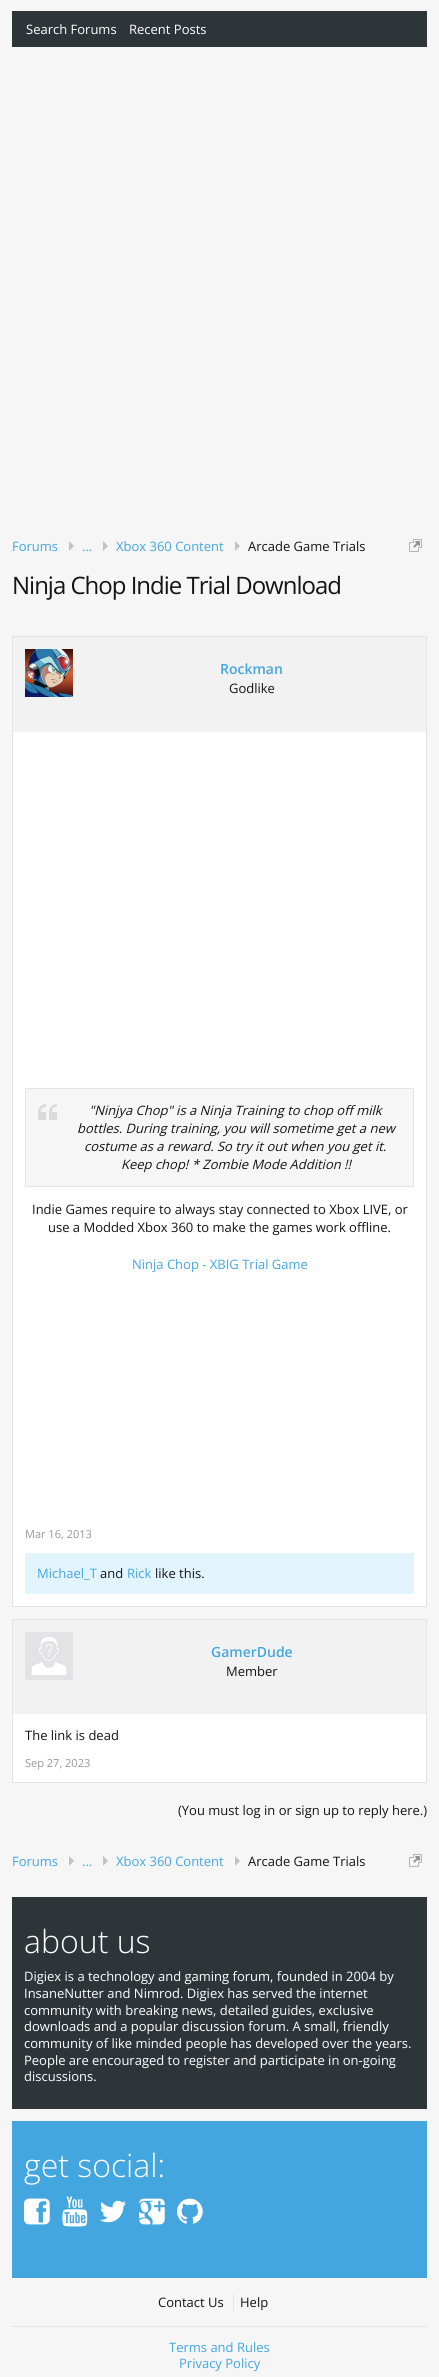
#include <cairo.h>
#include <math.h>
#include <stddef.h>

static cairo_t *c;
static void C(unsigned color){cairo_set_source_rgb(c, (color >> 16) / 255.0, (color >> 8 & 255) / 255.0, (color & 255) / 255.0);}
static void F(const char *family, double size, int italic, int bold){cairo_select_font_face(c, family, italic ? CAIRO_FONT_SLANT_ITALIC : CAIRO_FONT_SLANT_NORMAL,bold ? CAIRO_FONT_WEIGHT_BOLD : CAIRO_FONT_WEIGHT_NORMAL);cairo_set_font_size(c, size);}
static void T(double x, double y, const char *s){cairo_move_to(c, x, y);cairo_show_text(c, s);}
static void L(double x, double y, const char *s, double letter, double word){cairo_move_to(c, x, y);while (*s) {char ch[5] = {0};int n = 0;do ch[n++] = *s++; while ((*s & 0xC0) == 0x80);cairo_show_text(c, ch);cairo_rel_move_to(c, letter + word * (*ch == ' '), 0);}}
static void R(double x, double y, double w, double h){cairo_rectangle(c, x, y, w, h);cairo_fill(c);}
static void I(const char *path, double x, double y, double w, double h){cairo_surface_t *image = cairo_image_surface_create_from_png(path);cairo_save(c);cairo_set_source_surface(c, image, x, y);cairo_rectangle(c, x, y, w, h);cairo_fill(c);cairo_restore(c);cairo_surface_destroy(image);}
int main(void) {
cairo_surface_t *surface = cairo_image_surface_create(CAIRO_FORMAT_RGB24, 439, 2377);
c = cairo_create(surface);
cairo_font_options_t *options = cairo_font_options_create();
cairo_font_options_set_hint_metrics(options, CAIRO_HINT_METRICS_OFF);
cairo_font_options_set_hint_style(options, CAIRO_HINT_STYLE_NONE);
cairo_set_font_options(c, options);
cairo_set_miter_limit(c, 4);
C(0xf6f6f6);
cairo_paint(c);
C(0x2e3539);
R(12,11,415,36);
F("Open Sans",13,0,0);
C(0xffffff);
T(26,34,"Search Forums");
T(129,34,"Recent Posts");
C(0x43a6df);
T(12,551,"Forums");
T(82,551,"...");
C(0xc2c2c2);
cairo_new_path(c);
cairo_move_to(c,69,551);
cairo_line_to(c,69,541);
cairo_line_to(c,74,546);
cairo_close_path(c);
cairo_move_to(c,103,551);
cairo_line_to(c,103,541);
cairo_line_to(c,108,546);
cairo_close_path(c);
cairo_fill(c);
C(0x43a6df);
T(116,551,"Xbox 360 Content");
C(0xc2c2c2);
cairo_new_path(c);
cairo_move_to(c,235,551);
cairo_line_to(c,235,541);
cairo_line_to(c,240,546);
cairo_close_path(c);
cairo_fill(c);
C(0x141414);
T(248,551,"Arcade Game Trials");
I("1.png",409,539,13,13);
F("Open Sans",24,0,0);
L(12,594,"Ninja Chop Indie Trial Download",-1,0);
C(0xf2f2f2);
R(13,637,413,95);
cairo_rectangle(c,12.5,636.5,414,970);
C(0xe4e4e4);
cairo_set_line_width(c,1);
cairo_stroke(c);
I("2.png",25,649,48,48);
F("Open Sans SemiBold",14,0,0);
C(0x43a6df);
T(220,674,"Rockman");
F("Open Sans",13,0,0);
C(0x141414);
T(229,693,"Godlike");
C(0xffffff);
R(13,732,413,874);
C(0xf6f6f6);
cairo_rectangle(c,25.5,1088.5,388,98);
cairo_fill_preserve(c);
C(0xe4e4e4);
cairo_stroke(c);
I("3.png",38,1104,19,16);
F("Open Sans",13,1,0);
C(0x141414);
T(89,1115,"\"Ninjya Chop\" is a Ninja Training to chop off milk");
T(77,1133,"bottles. During training, you will sometime get a new");
T(84,1151,"costume as a reward. So try it out when you get it.");
T(121,1169,"Keep chop! * Zombie Mode Addition !!");
F("Open Sans",13,0,0);
T(32,1214,"Indie Games require to always stay connected to Xbox LIVE, or");
T(48,1232,"use a Modded Xbox 360 to make the games work offline.");
C(0x43a6df);
T(132,1269,"Ninja Chop - XBIG Trial Game");
F("Open Sans",11,0,0);
C(0x969696);
T(25,1538,"Mar 16, 2013");
C(0xe2f5ff);
R(25,1553,389,41);
F("Open Sans",13,0,0);
C(0x43a6df);
T(37,1578,"Michael_T");
C(0x141414);
T(100,1578,"and");
C(0x43a6df);
T(127,1578,"Rick");
C(0x141414);
T(155,1578,"like this.");
C(0xf2f2f2);
R(13,1620,413,94);
cairo_rectangle(c,12.5,1619.5,414,163);
C(0xe4e4e4);
cairo_stroke(c);
I("4.png",25,1632,48,48);
F("Open Sans SemiBold",14,0,0);
C(0x43a6df);
T(211,1657,"GamerDude");
F("Open Sans",13,0,0);
C(0x141414);
T(226,1676,"Member");
C(0xffffff);
R(13,1714,413,68);
C(0x141414);
T(25,1740,"The link is dead");
F("Open Sans",11,0,0);
C(0x969696);
T(25,1767,"Sep 27, 2023");
F("Open Sans",13,0,0);
C(0x141414);
T(178,1815,"(You must log in or sign up to reply here.)");
C(0x43a6df);
T(12,1866,"Forums");
T(82,1866,"...");
C(0xc2c2c2);
cairo_new_path(c);
cairo_move_to(c,69,1866);
cairo_line_to(c,69,1856);
cairo_line_to(c,74,1861);
cairo_close_path(c);
cairo_move_to(c,103,1866);
cairo_line_to(c,103,1856);
cairo_line_to(c,108,1861);
cairo_close_path(c);
cairo_fill(c);
C(0x43a6df);
T(116,1866,"Xbox 360 Content");
C(0xc2c2c2);
cairo_new_path(c);
cairo_move_to(c,235,1866);
cairo_line_to(c,235,1856);
cairo_line_to(c,240,1861);
cairo_close_path(c);
cairo_fill(c);
C(0x141414);
T(248,1866,"Arcade Game Trials");
I("1.png",409,1854,13,13);
C(0x2e3539);
R(12,1897,415,212);
F("Open Sans Light",32,0,0);
C(0xffffff);
T(24,1953,"about us");
F("Open Sans",13,0,0);
T(24,1981,"Digiex is a technology and gaming forum, founded in 2004 by");
T(24,1998,"InsaneNutter and Nimrod. Digiex has served the internet");
T(24,2015,"community with breaking news, detailed guides, exclusive");
T(24,2031,"downloads and a popular discussion forum. A small, friendly");
T(24,2048,"community of like minded people has developed over the years.");
T(24,2065,"People are encouraged to register and participate in on-going");
T(24,2081,"discussions.");
C(0x43a6df);
R(12,2121,415,157);
F("Open Sans Light",32,0,0);
C(0xffffff);
T(24,2177,"get social:");
I("5.png",24,2198,26,27);
I("6.png",62,2196,26,31);
I("7.png",100,2200,26,23);
I("8.png",139,2198,26,27);
I("9.png",177,2198,26,26);
C(0xe4e4e4);
R(12,2326,415,1);
F("Open Sans",13,0,0);
C(0x141414);
T(158,2307,"Contact Us");
C(0xe4e4e4);
R(233,2294,1,17);
C(0x141414);
T(240,2307,"Help");
C(0x43a6df);
T(169,2352,"Terms and Rules");
T(179,2368,"Privacy Policy");
cairo_surface_write_to_png(surface, "o.png");
cairo_font_options_destroy(options);
cairo_destroy(c);
cairo_surface_destroy(surface);
return 0;
}
